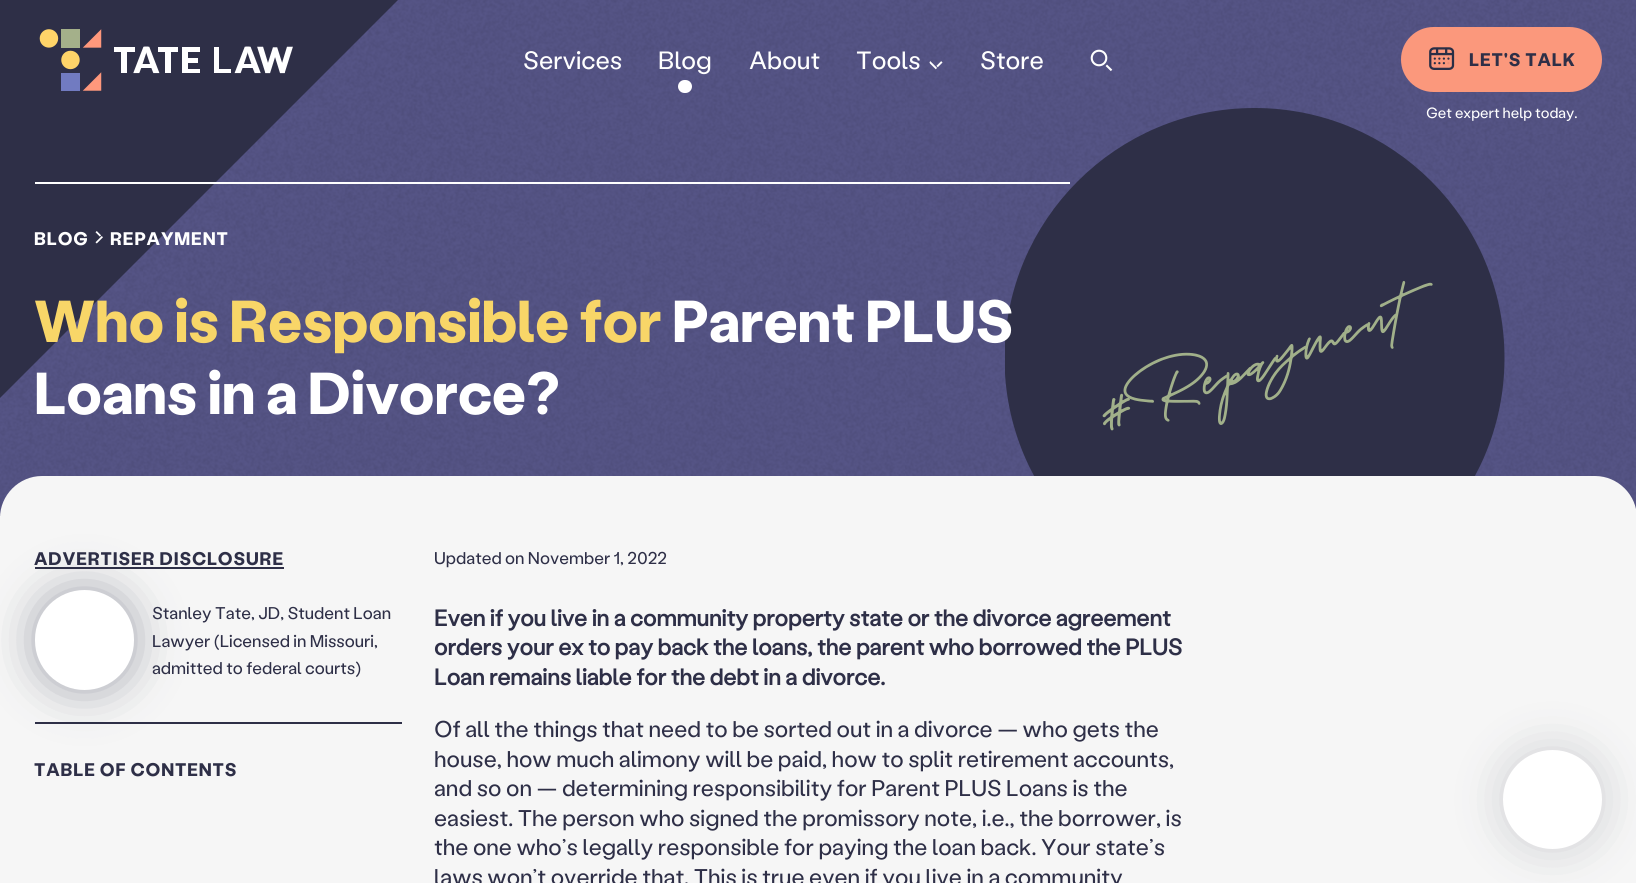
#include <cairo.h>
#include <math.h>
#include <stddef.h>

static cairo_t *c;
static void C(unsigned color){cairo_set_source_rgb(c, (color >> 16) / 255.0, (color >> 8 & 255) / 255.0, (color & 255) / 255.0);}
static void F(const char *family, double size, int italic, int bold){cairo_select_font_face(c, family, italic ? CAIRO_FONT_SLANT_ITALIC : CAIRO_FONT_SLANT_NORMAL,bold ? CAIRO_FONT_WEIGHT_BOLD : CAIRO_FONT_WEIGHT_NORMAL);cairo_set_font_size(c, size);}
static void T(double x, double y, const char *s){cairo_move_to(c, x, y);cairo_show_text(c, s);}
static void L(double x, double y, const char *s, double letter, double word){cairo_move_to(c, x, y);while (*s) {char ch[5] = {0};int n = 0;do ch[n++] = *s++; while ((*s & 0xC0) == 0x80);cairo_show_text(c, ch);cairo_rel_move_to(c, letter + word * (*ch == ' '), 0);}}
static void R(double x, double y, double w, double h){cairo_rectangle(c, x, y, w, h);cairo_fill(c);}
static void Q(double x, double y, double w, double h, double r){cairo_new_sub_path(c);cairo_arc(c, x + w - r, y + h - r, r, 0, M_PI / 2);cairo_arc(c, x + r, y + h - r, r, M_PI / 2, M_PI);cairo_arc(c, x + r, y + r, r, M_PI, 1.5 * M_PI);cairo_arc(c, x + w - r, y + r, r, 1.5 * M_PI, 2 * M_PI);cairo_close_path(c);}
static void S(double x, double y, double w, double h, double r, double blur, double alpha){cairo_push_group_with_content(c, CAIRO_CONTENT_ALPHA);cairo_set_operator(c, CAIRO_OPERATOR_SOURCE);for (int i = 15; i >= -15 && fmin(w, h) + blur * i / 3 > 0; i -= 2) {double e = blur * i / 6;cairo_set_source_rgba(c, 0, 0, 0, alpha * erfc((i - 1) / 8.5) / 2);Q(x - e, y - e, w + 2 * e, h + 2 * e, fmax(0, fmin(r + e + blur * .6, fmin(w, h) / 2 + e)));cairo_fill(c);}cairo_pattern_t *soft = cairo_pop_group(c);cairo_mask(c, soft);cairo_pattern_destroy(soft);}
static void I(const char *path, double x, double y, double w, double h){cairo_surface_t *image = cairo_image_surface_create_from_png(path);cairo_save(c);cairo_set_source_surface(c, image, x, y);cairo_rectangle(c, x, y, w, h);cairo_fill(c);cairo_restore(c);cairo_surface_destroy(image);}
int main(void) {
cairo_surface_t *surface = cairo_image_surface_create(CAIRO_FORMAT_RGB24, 1636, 883);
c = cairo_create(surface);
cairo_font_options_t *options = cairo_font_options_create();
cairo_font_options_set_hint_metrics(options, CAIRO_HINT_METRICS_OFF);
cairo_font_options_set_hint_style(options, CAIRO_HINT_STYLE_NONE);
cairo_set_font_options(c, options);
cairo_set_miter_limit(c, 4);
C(0x565587);
cairo_paint(c);
I("1.png",0,0,1636,516);
C(0x2e2f47);
cairo_new_path(c);
cairo_move_to(c,398,0);
cairo_line_to(c,0,398);
cairo_line_to(c,0,0);
cairo_close_path(c);
cairo_fill(c);
I("2.png",39,29,254,62);
F("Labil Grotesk",25,0,0);
C(0xffffff);
T(523,69,"Services");
T(658,69,"Blog");
Q(678,80,14,13,6.5);
cairo_fill(c);
T(749,69,"About");
T(856,69,"Tools");
I("3.png",929,61,14,9);
T(980,69,"Store");
I("4.png",1090,49,23,23);
C(0xfb987c);
Q(1401,27,201,65,32.5);
cairo_fill(c);
I("5.png",1429,47,26,23);
F("Labil Grotesk",18.25,0,1);
C(0x2e2f47);
L(1469,66,"LET'S TALK",.85,0);
cairo_save(c);
cairo_rectangle(c,1005,108,500,410);
cairo_clip(c);
cairo_arc(c,1254.5,358,250,0,2 * M_PI);
cairo_fill(c);
cairo_restore(c);
F("Labil Grotesk",14.75,0,0);
C(0xffffff);
T(1426,118,"Get expert help today.");
R(35,182,1035,2);
F("Labil Grotesk",18.25,0,1);
L(34,245,"BLOG",.85,0);
I("6.png",95,231,8,13);
L(110,245,"REPAYMENT",.85,0);
F("Labil Grotesk",59.1,0,1);
C(0xf8d668);
T(34,342,"Who is Responsible for");
C(0xffffff);
T(672,342,"Parent PLUS");
T(34,414,"Loans in a Divorce?");
F("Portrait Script",54,0,1);
C(0xa1b08a);
cairo_save(c);
cairo_translate(c,1102,429);
cairo_rotate(c,-20 * M_PI / 180);
L(0,0,"#Repayment",1.4,0);
cairo_restore(c);
C(0xf6f6f6);
cairo_new_path(c);
cairo_move_to(c,42,476);
cairo_line_to(c,1595,476);
cairo_curve_to(c,1618,476,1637,495,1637,518);
cairo_line_to(c,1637,521);
cairo_line_to(c,0,521);
cairo_line_to(c,0,518);
cairo_curve_to(c,0,495,19,476,42,476);
cairo_close_path(c);
cairo_fill(c);
R(0,516,1636,367);
F("Labil Grotesk",18.25,0,1);
C(0x2e2f47);
L(34,565,"ADVERTISER DISCLOSURE",.85,0);
R(35,567,249,2);
R(35,722,367,2);
C(0x292e46);
S(35,590,99,100,49.5,22.5,.4);
C(0xffffff);
Q(35,590,99,100,49.5);
cairo_fill(c);
F("Labil Grotesk",17,0,0);
C(0x2e2f47);
T(152,619,"Stanley Tate, JD, Student Loan");
T(152,647,"Lawyer (Licensed in Missouri,");
T(152,674,"admitted to federal courts)");
F("Labil Grotesk",18.25,0,1);
L(34,776,"TABLE OF CONTENTS",.85,0);
F("Labil Grotesk",17,0,0);
T(434,564,"Updated on November 1, 2022");
F("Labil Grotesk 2",22.75,0,1);
T(434,626,"Even if you live in a community property state or the divorce agreement");
T(434,655,"orders your ex to pay back the loans, the parent who borrowed the PLUS");
T(434,685,"Loan remains liable for the debt in a divorce.");
F("Labil Grotesk",22.75,0,0);
T(434,737,"Of all the things that need to be sorted out in a divorce — who gets the");
T(434,767,"house, how much alimony will be paid, how to split retirement accounts,");
T(434,796,"and so on — determining responsibility for Parent PLUS Loans is the");
T(434,826,"easiest. The person who signed the promissory note, i.e., the borrower, is");
T(434,855,"the one who’s legally responsible for paying the loan back. Your state’s");
T(434,885,"laws won’t override that. This is true even if you live in a community");
C(0x2e3247);
S(1503,750,99,99,49.5,22.5,.2);
C(0xffffff);
cairo_arc(c,1552.5,799.5,49.5,0,2 * M_PI);
cairo_fill(c);
cairo_surface_write_to_png(surface, "o.png");
cairo_font_options_destroy(options);
cairo_destroy(c);
cairo_surface_destroy(surface);
return 0;
}
